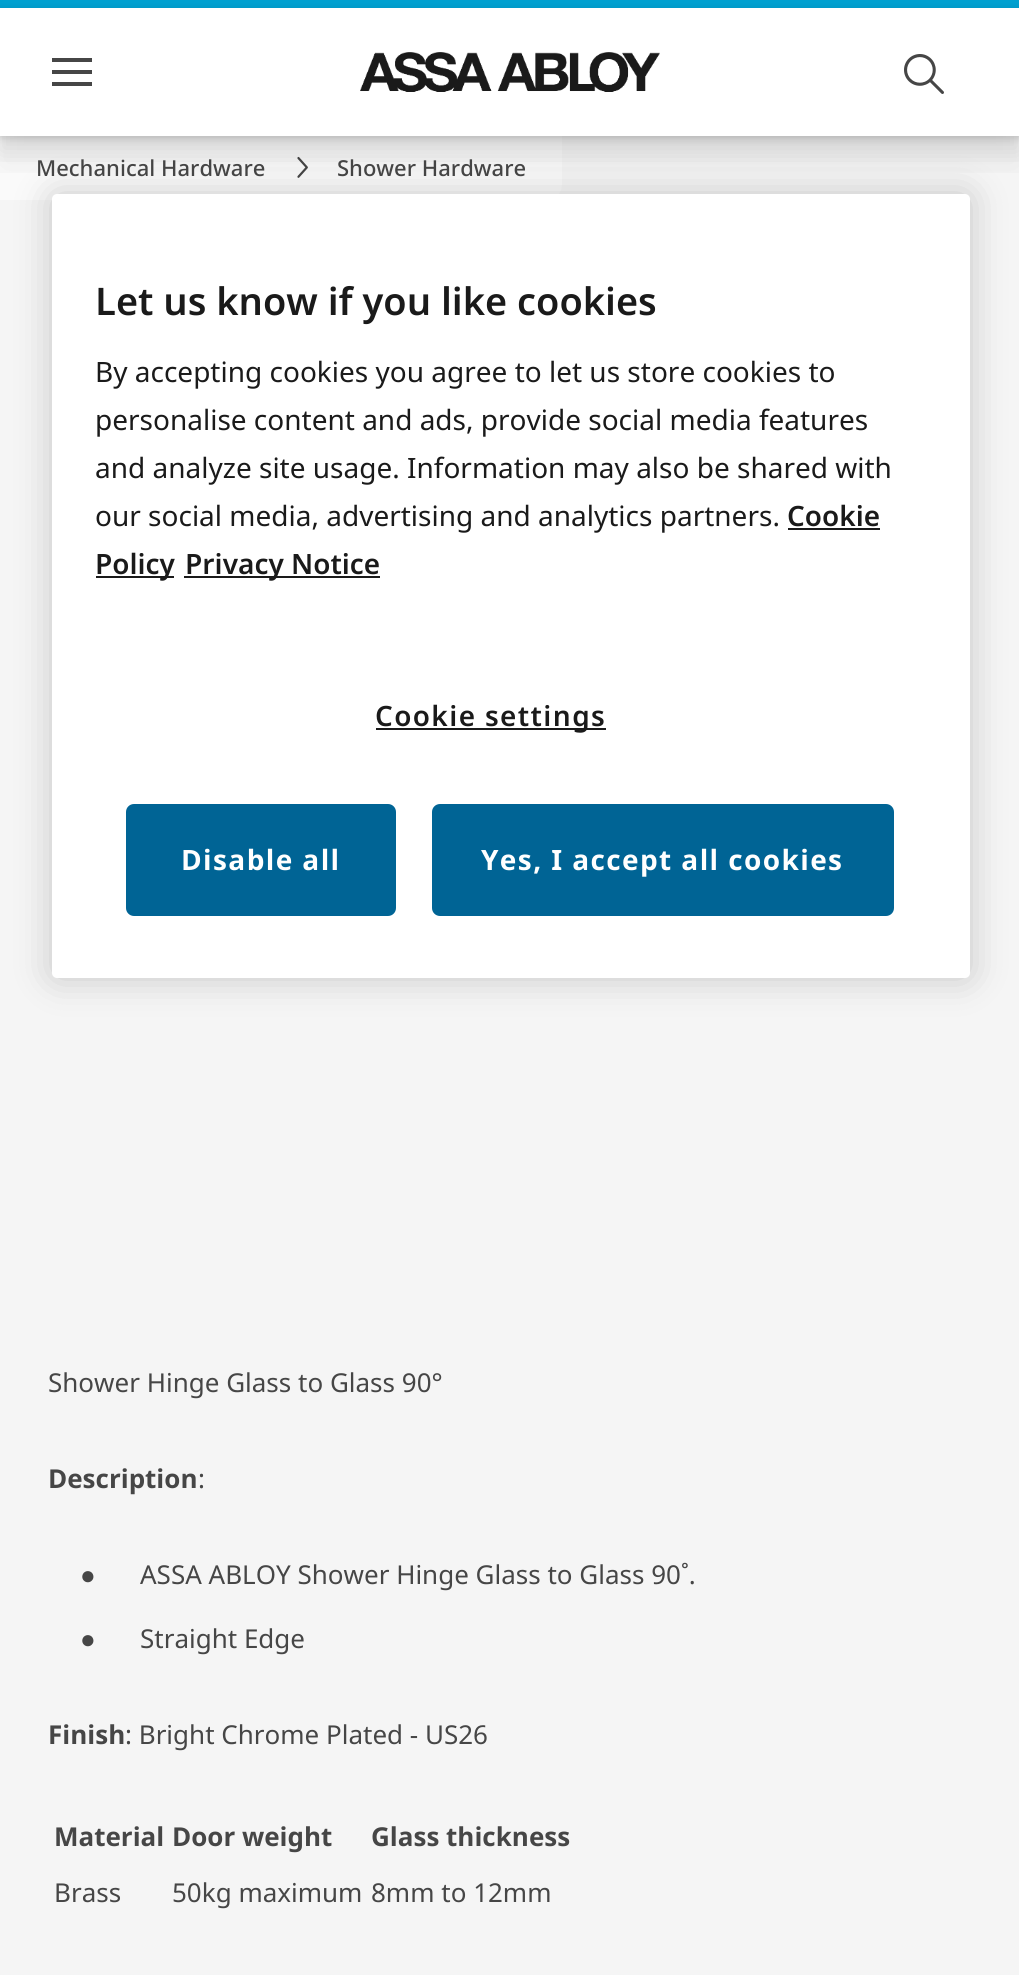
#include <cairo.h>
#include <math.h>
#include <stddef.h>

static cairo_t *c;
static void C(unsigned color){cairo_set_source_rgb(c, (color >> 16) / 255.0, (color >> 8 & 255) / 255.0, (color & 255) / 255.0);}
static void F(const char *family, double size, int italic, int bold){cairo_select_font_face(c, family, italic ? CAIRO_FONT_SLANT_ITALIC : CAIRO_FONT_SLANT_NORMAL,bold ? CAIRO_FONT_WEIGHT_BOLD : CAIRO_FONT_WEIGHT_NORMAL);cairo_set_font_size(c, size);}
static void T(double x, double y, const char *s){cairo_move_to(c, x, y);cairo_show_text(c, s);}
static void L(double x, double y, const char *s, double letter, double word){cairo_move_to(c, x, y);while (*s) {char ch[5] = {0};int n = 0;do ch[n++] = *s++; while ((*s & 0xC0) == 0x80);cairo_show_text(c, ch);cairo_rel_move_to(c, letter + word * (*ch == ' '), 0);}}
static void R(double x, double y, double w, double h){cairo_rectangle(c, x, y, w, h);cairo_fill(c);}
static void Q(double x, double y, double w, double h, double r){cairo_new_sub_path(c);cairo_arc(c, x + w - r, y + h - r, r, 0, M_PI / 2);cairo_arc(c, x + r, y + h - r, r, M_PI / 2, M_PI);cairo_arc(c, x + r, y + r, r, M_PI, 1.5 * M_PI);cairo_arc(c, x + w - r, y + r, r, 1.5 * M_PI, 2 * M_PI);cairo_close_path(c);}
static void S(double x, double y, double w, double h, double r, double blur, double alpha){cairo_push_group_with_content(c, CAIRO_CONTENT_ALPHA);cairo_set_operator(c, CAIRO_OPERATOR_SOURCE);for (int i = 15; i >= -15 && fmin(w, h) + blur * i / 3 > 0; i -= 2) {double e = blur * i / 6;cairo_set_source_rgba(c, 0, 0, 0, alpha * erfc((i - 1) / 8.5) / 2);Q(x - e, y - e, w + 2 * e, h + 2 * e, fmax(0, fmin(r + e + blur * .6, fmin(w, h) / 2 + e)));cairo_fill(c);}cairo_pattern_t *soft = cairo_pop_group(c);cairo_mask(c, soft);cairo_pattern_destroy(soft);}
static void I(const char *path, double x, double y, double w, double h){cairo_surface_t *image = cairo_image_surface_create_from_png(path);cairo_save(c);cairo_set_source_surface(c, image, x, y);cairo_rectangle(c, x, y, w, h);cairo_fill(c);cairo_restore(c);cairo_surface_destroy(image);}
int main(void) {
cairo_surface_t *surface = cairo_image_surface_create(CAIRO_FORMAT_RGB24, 1019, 1975);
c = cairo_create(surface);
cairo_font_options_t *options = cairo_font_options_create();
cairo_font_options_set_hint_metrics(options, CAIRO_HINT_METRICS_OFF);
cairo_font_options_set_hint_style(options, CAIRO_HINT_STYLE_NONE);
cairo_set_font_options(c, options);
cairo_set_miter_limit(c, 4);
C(0xf5f5f5);
cairo_paint(c);
C(0x00a0d0);
R(0,0,1019,8);
C(0xffffff);
R(0,8,1019,128);
C(0x464646);
R(52,58,40,4);
R(52,70,40,4);
R(52,82,40,4);
I("1.png",360,52,300,40);
I("2.png",904,54,40,40);
C(0xfafafa);
cairo_new_path(c);
cairo_move_to(c,0,136);
cairo_line_to(c,562,136);
cairo_line_to(c,562,184);
cairo_curve_to(c,562,193,555,200,546,200);
cairo_line_to(c,0,200);
cairo_close_path(c);
cairo_fill(c);
cairo_save(c);
cairo_set_fill_rule(c,CAIRO_FILL_RULE_EVEN_ODD);
cairo_new_path(c);
cairo_move_to(c,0,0);
cairo_line_to(c,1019,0);
cairo_line_to(c,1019,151);
cairo_line_to(c,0,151);
cairo_close_path(c);
cairo_move_to(c,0,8);
cairo_line_to(c,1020,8);
cairo_line_to(c,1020,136);
cairo_line_to(c,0,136);
cairo_close_path(c);
cairo_clip(c);
C(0x000000);
S(0,10,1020,128,0,4,.15);
cairo_restore(c);
I("3.png",297,156,11,22);
cairo_save(c);
cairo_rectangle(c,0,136,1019,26);
cairo_clip(c);
C(0x000000);
S(0,24,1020,128,0,12,.1);
cairo_restore(c);
cairo_save(c);
cairo_rectangle(c,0,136,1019,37);
cairo_clip(c);
C(0x000000);
S(0,40,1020,128,0,20,.05);
cairo_restore(c);
F("Noto Sans Medium",22,0,0);
C(0x464646);
T(36,176,"Mechanical Hardware");
T(337,176,"Shower Hardware");
F("Noto Sans",26,0,0);
T(48,1392,"Shower Hinge Glass to Glass 90°");
F("Noto Sans",26,0,1);
T(48,1488,"Description");
F("Noto Sans",26,0,0);
T(198,1488,":");
F("Liberation Serif",26,0,0);
T(80,1584,"●");
F("Noto Sans",26,0,0);
T(140,1584,"ASSA ABLOY Shower Hinge Glass to Glass 90˚.");
F("Liberation Serif",26,0,0);
T(80,1648,"●");
F("Noto Sans",26,0,0);
T(140,1648,"Straight Edge");
F("Noto Sans",26,0,1);
T(48,1744,"Finish");
F("Noto Sans",26,0,0);
T(125,1744,": Bright Chrome Plated - US26");
F("Noto Sans",26,0,1);
T(54,1846,"Material");
T(172,1846,"Door weight");
T(371,1846,"Glass thickness");
F("Noto Sans",26,0,0);
T(54,1902,"Brass");
T(172,1902,"50kg maximum");
T(371,1902,"8mm to 12mm");
C(0x000000);
S(52,194,918,784,5,18,.2);
C(0xffffff);
Q(52,194,918,784,5);
cairo_fill(c);
F("Noto Sans SemiBold",38,0,0);
C(0x1a1a1a);
T(95,315,"Let us know if you like cookies");
F("Noto Sans",28,0,0);
T(95,382,"By accepting cookies you agree to let us store cookies to");
T(95,430,"personalise content and ads, provide social media features");
T(95,478,"and analyze site usage. Information may also be shared with");
T(95,526,"our social media, advertising and analytics partners.");
F("Noto Sans SemiBold",28,0,0);
T(787,526,"Cookie");
R(788,528,92,2);
R(96,576,78,2);
T(95,574,"Policy");
R(184,576,196,2);
T(185,574,"Privacy Notice");
R(376,728,230,2);
L(375,726,"Cookie settings",1.4,0);
C(0x006495);
Q(127,805,268,110,7);
cairo_fill_preserve(c);
cairo_stroke(c);
F("Noto Sans",28,0,1);
C(0xffffff);
L(181,870,"Disable all",1.4,0);
C(0x006495);
Q(433,805,460,110,7);
cairo_fill_preserve(c);
cairo_stroke(c);
C(0xffffff);
L(481,870,"Yes, I accept all cookies",1.4,0);
cairo_surface_write_to_png(surface, "o.png");
cairo_font_options_destroy(options);
cairo_destroy(c);
cairo_surface_destroy(surface);
return 0;
}
